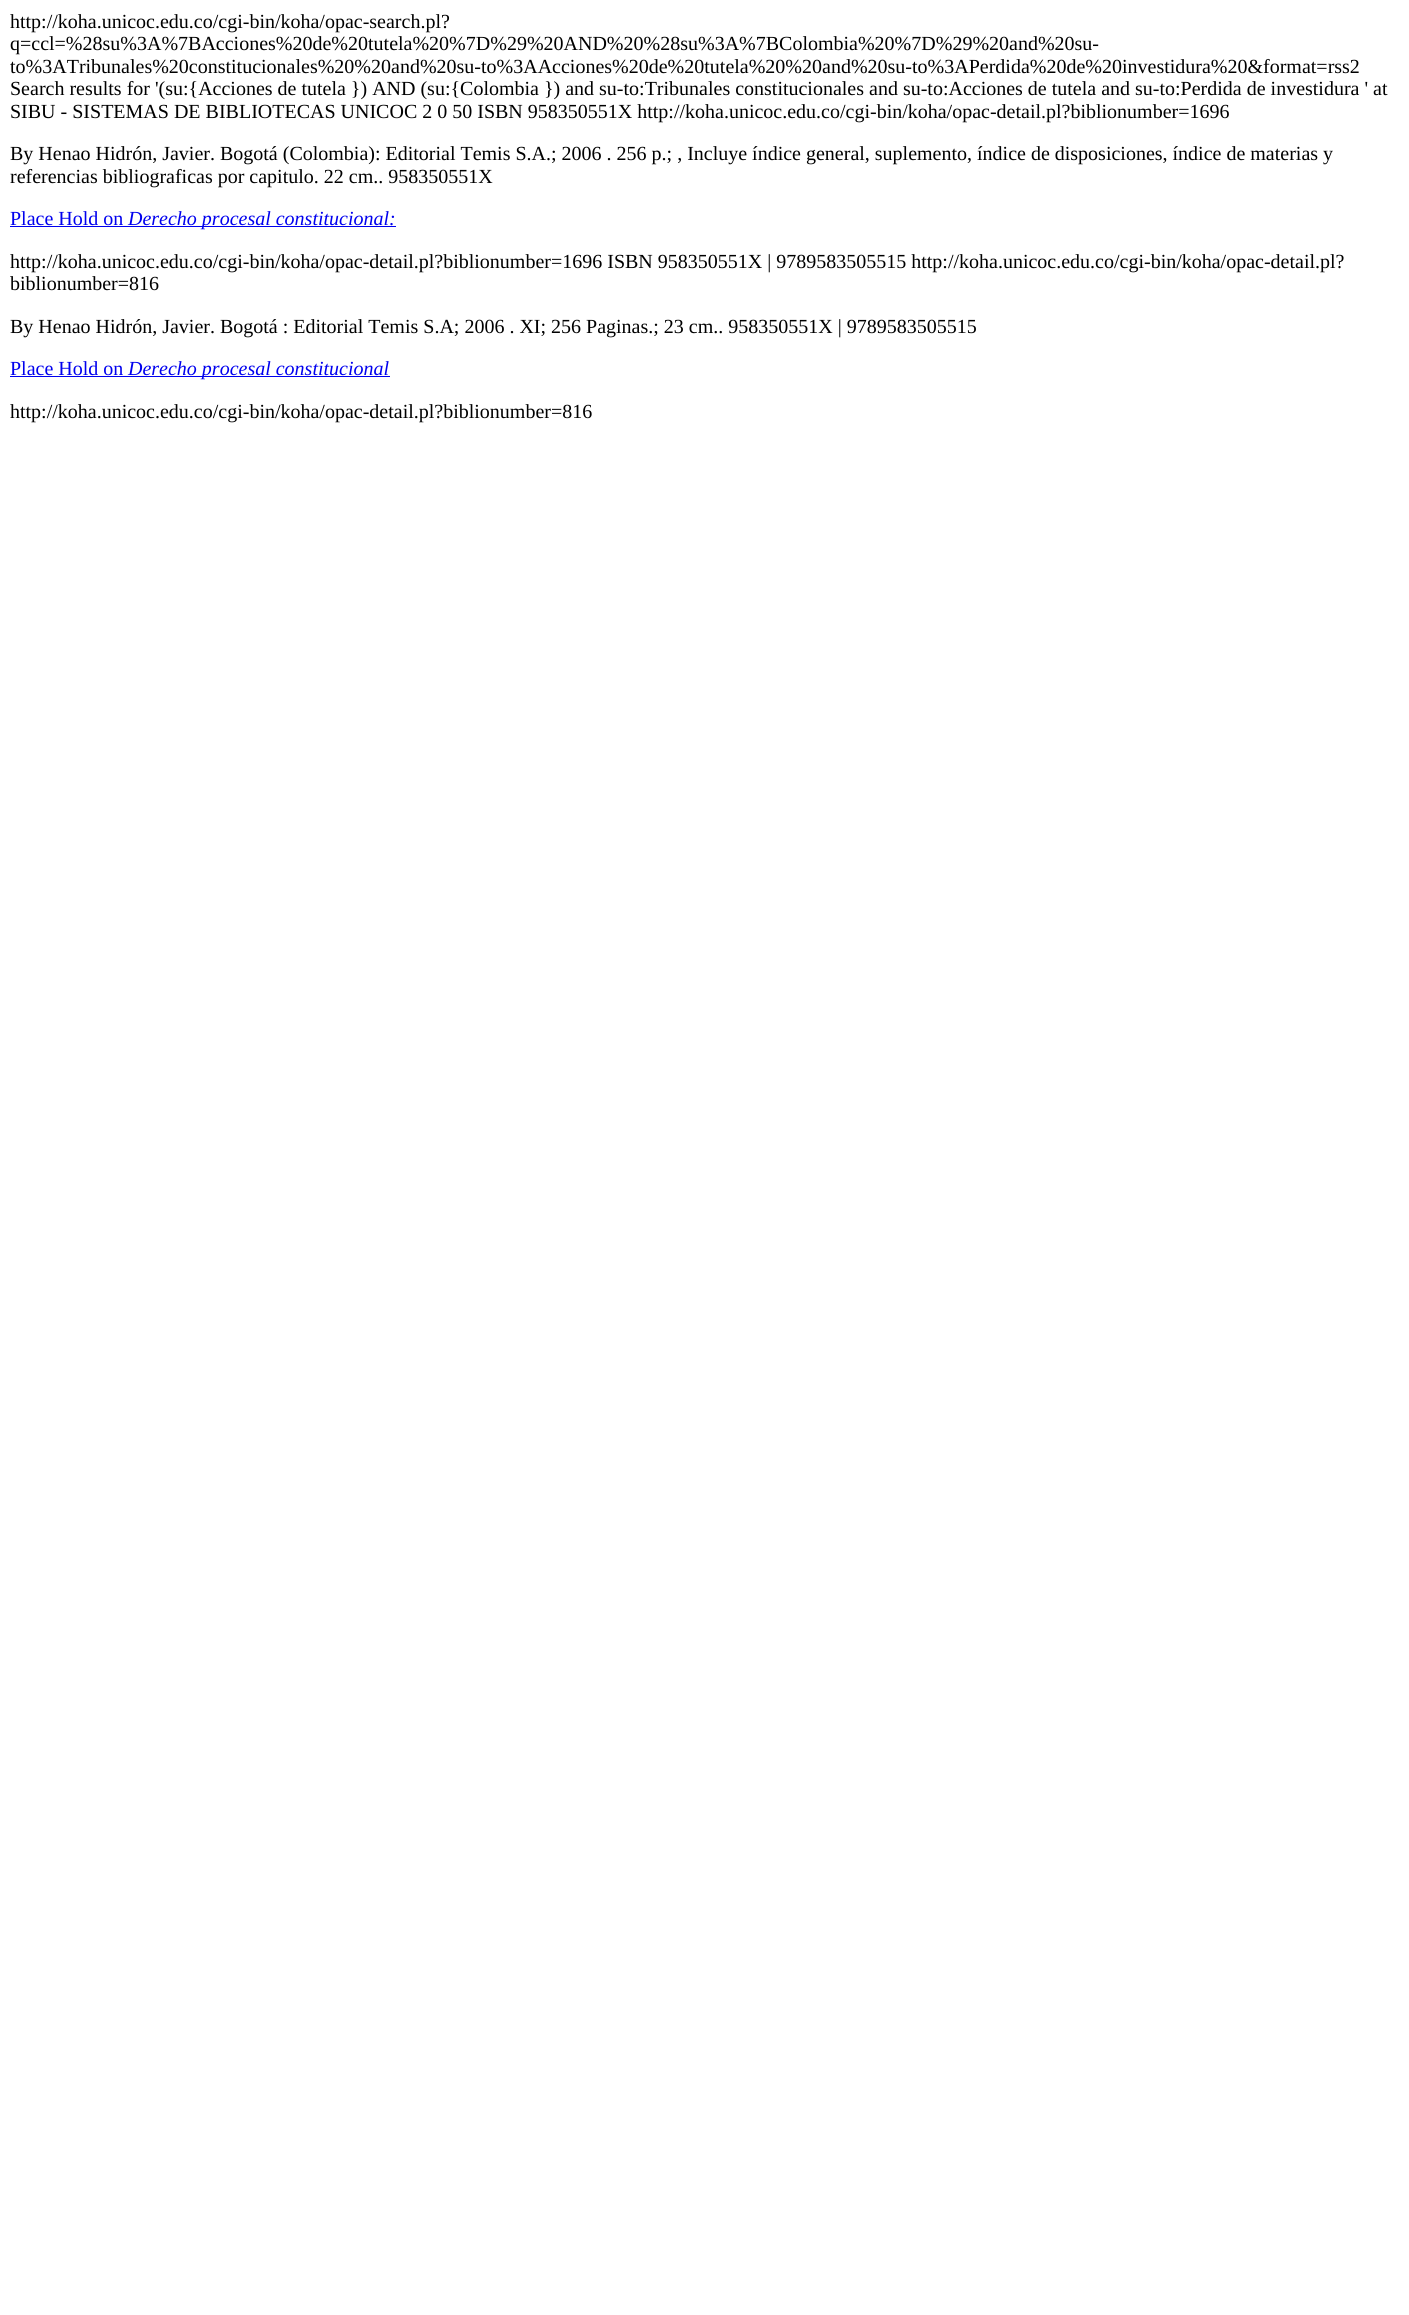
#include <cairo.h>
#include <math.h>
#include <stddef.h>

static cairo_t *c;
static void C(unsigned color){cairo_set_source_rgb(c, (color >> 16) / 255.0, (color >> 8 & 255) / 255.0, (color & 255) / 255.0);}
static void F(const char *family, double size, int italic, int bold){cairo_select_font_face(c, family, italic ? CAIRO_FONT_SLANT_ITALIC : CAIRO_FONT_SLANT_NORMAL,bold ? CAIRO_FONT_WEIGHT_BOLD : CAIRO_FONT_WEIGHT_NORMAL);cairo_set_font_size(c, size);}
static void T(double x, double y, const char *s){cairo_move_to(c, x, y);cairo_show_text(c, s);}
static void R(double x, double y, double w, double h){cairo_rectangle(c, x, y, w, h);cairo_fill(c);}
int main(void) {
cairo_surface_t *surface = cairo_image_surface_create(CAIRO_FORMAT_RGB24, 1409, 2315);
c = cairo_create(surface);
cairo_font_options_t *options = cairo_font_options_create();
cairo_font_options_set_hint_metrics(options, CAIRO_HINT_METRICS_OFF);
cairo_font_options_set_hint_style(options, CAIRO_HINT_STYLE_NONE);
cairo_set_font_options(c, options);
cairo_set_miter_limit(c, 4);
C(0xffffff);
cairo_paint(c);
F("Liberation Serif",20,0,0);
C(0x000000);
T(10,28,"http://koha.unicoc.edu.co/cgi-bin/koha/opac-search.pl?");
T(10,50,"q=ccl=%28su%3A%7BAcciones%20de%20tutela%20%7D%29%20AND%20%28su%3A%7BColombia%20%7D%29%20and%20su-");
T(10,73,"to%3ATribunales%20constitucionales%20%20and%20su-to%3AAcciones%20de%20tutela%20%20and%20su-to%3APerdida%20de%20investidura%20&format=rss2");
T(10,95,"Search results for '(su:{Acciones de tutela }) AND (su:{Colombia }) and su-to:Tribunales constitucionales and su-to:Acciones de tutela and su-to:Perdida de investidura ' at");
T(10,118,"SIBU - SISTEMAS DE BIBLIOTECAS UNICOC 2 0 50 ISBN 958350551X http://koha.unicoc.edu.co/cgi-bin/koha/opac-detail.pl?biblionumber=1696");
T(10,160,"By Henao Hidrón, Javier. Bogotá (Colombia): Editorial Temis S.A.; 2006 . 256 p.; , Incluye índice general, suplemento, índice de disposiciones, índice de materias y");
T(10,183,"referencias bibliograficas por capitulo. 22 cm.. 958350551X");
C(0x0000ee);
T(10,225,"Place Hold on");
R(10,226,386,1);
F("Liberation Serif",20,1,0);
T(128,225,"Derecho procesal constitucional:");
F("Liberation Serif",20,0,0);
C(0x000000);
T(10,268,"http://koha.unicoc.edu.co/cgi-bin/koha/opac-detail.pl?biblionumber=1696 ISBN 958350551X | 9789583505515 http://koha.unicoc.edu.co/cgi-bin/koha/opac-detail.pl?");
T(10,290,"biblionumber=816");
T(10,333,"By Henao Hidrón, Javier. Bogotá : Editorial Temis S.A; 2006 . XI; 256 Paginas.; 23 cm.. 958350551X | 9789583505515");
C(0x0000ee);
T(10,375,"Place Hold on");
R(10,376,380,1);
F("Liberation Serif",20,1,0);
T(128,375,"Derecho procesal constitucional");
F("Liberation Serif",20,0,0);
C(0x000000);
T(10,418,"http://koha.unicoc.edu.co/cgi-bin/koha/opac-detail.pl?biblionumber=816");
cairo_surface_write_to_png(surface, "o.png");
cairo_font_options_destroy(options);
cairo_destroy(c);
cairo_surface_destroy(surface);
return 0;
}
